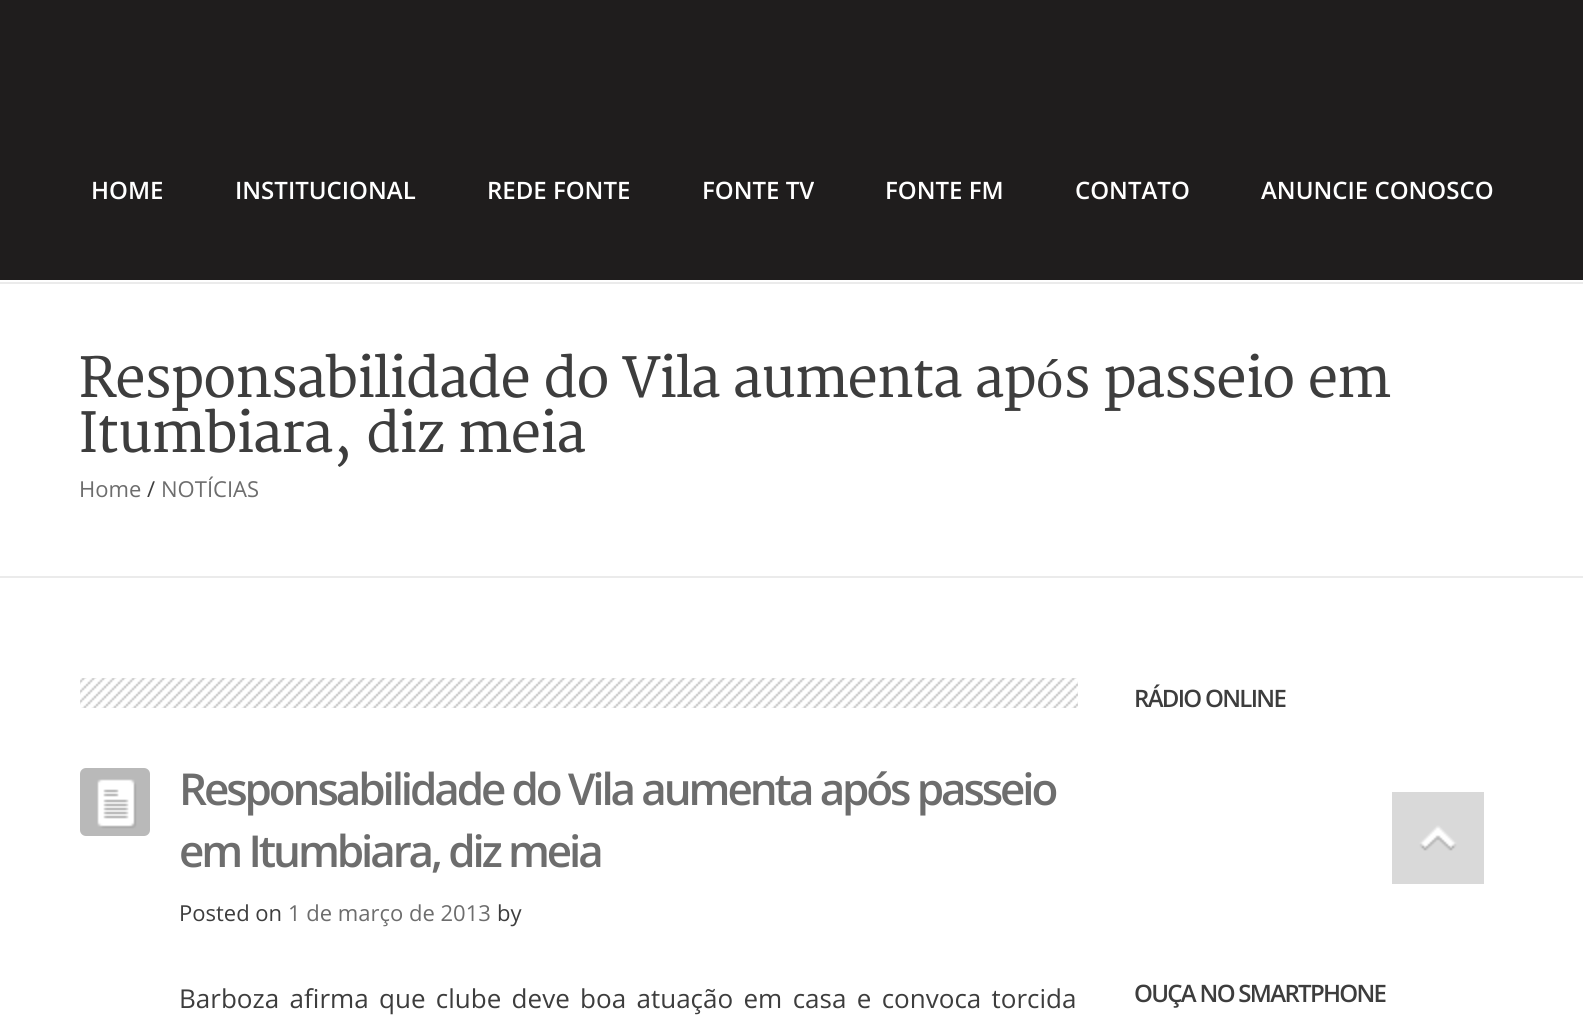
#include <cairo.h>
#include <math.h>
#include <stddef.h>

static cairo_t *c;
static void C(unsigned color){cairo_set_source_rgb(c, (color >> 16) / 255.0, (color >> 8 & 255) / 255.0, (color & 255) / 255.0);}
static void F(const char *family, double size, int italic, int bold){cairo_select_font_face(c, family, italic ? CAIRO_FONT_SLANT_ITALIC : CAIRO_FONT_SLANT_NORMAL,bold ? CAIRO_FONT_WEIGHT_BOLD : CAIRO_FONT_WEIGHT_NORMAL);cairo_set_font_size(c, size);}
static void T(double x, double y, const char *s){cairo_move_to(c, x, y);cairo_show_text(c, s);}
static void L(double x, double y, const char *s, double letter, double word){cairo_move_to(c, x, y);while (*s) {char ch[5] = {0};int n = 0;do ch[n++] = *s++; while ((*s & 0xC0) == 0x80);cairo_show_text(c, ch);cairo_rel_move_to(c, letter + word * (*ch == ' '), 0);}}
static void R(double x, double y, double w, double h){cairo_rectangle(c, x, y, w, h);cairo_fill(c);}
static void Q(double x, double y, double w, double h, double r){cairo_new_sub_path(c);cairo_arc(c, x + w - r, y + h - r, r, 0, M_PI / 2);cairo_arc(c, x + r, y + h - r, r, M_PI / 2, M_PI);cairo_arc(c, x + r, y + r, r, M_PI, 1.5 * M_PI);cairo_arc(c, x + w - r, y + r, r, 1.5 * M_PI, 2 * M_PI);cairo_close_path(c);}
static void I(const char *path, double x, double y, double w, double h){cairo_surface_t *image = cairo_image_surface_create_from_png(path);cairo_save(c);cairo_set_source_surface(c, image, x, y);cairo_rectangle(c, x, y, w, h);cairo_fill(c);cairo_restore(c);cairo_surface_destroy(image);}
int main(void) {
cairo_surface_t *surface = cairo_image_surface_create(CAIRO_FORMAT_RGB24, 1583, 1016);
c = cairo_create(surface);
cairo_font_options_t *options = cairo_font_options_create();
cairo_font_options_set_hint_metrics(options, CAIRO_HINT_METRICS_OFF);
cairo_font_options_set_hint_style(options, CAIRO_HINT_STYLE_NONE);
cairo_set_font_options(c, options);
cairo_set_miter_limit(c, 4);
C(0xffffff);
cairo_paint(c);
C(0x1f1d1d);
R(0,0,1583,280);
F("Open Sans SemiBold",24,0,0);
C(0xffffff);
T(91,199,"HOME");
T(235,199,"INSTITUCIONAL");
T(487,199,"REDE FONTE");
T(702,199,"FONTE TV");
T(885,199,"FONTE FM");
T(1075,199,"CONTATO");
T(1261,199,"ANUNCIE CONOSCO");
C(0xebebeb);
R(0,282,1583,2);
R(0,576,1583,2);
F("Merriweather",54.6,0,0);
C(0x3d3d3d);
T(79,397,"Responsabilidade do Vila aumenta ap");
F("Liberation Serif",54.6,0,0);
T(1036,397,"ó");
F("Merriweather",54.6,0,0);
T(1064,397,"s passeio em");
T(79,452,"Itumbiara, diz meia");
F("Open Sans",22,0,0);
C(0x6d6d6d);
T(79,497,"Home");
C(0x3d3d3d);
T(147,497,"/");
C(0x6d6d6d);
T(161,497,"NOTÍCIAS");
I("1.png",80,678,998,30);
C(0xb9b9b9);
Q(80,768,70,68,6);
cairo_fill(c);
I("2.png",97,779,40,50);
F("Open Sans SemiBold",44,0,0);
C(0x6d6d6d);
L(179,805,"Responsabilidade do Vila aumenta após passeio",-3.1,0);
L(179,867,"em Itumbiara, diz meia",-3.1,0);
F("Open Sans",22,0,0);
C(0x3d3d3d);
T(179,921,"Posted on");
C(0x6d6d6d);
T(288,921,"1 de março de 2013");
C(0x3d3d3d);
T(497,921,"by");
F("Open Sans",26,0,0);
L(179,1008,"Barboza afirma que clube deve boa atuação em casa e convoca torcida",0,3.6);
F("Open Sans SemiBold",24,0,0);
L(1134,707,"RÁDIO ONLINE",-1.7,0);
L(1134,1002,"OUÇA NO SMARTPHONE",-1.7,0);
I("3.png",1392,792,92,92);
cairo_surface_write_to_png(surface, "o.png");
cairo_font_options_destroy(options);
cairo_destroy(c);
cairo_surface_destroy(surface);
return 0;
}
